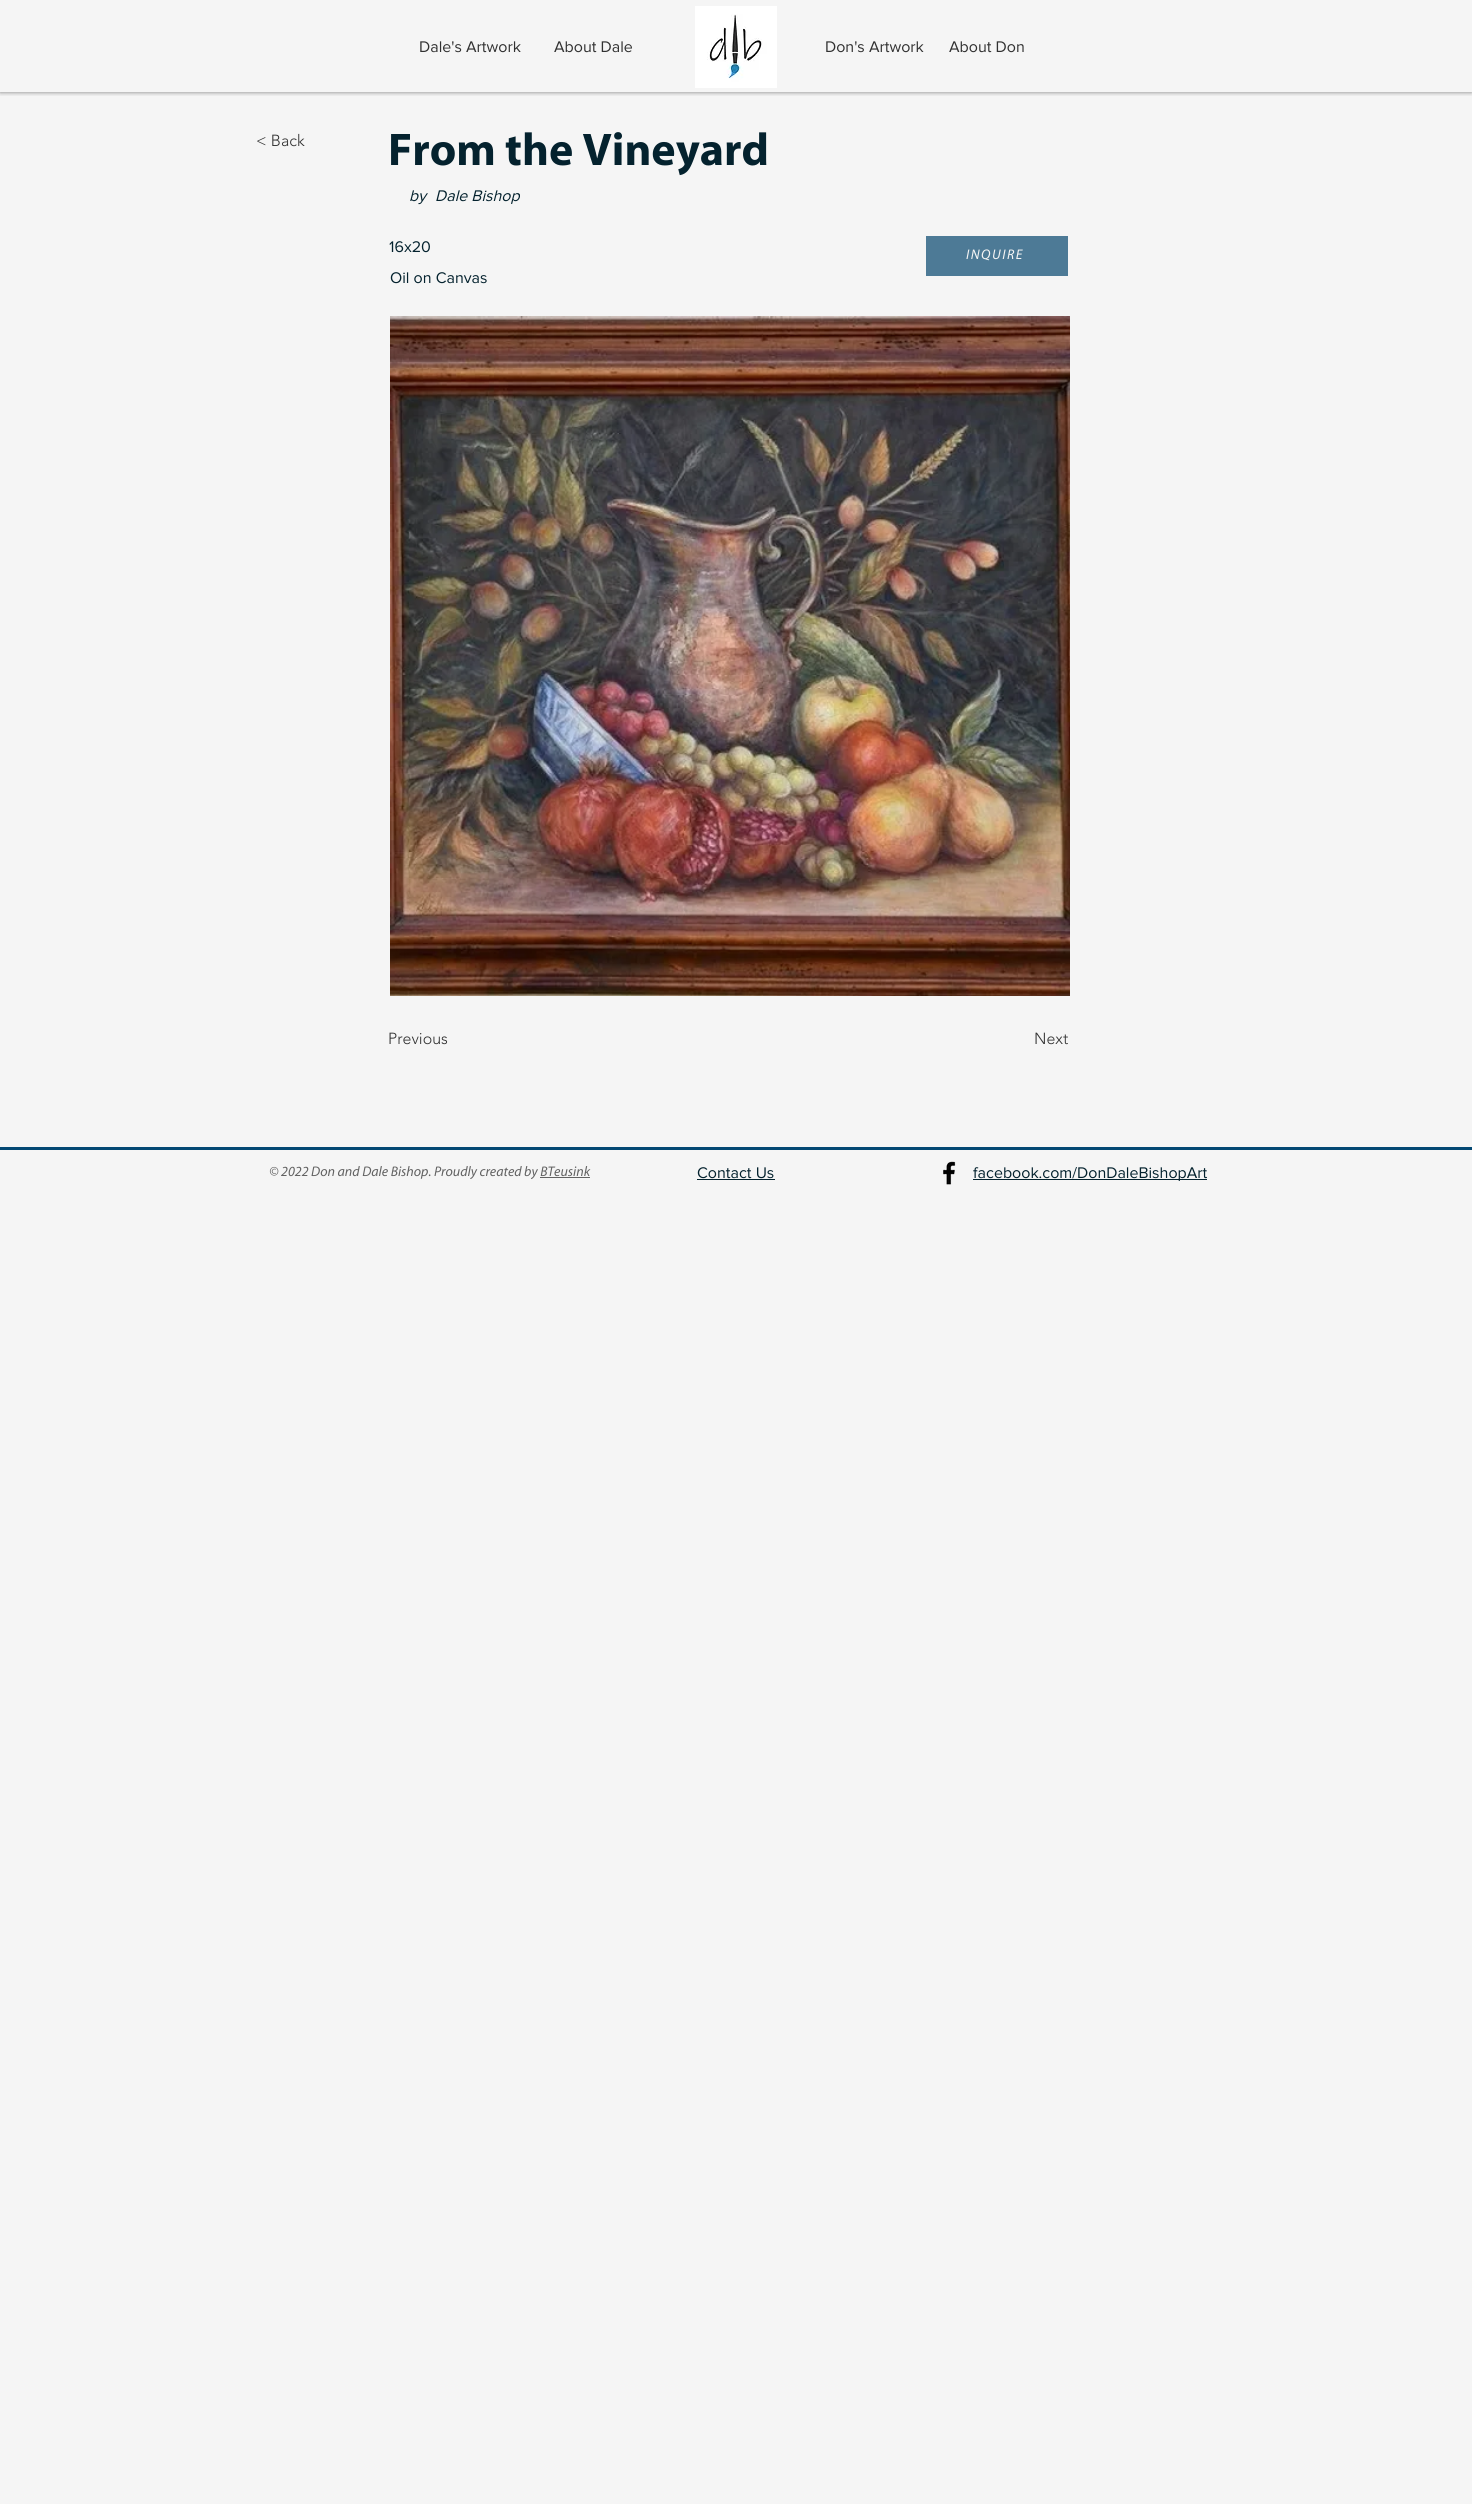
#include <cairo.h>
#include <math.h>
#include <stddef.h>

static cairo_t *c;
static void C(unsigned color){cairo_set_source_rgb(c, (color >> 16) / 255.0, (color >> 8 & 255) / 255.0, (color & 255) / 255.0);}
static void F(const char *family, double size, int italic, int bold){cairo_select_font_face(c, family, italic ? CAIRO_FONT_SLANT_ITALIC : CAIRO_FONT_SLANT_NORMAL,bold ? CAIRO_FONT_WEIGHT_BOLD : CAIRO_FONT_WEIGHT_NORMAL);cairo_set_font_size(c, size);}
static void T(double x, double y, const char *s){cairo_move_to(c, x, y);cairo_show_text(c, s);}
static void L(double x, double y, const char *s, double letter, double word){cairo_move_to(c, x, y);while (*s) {char ch[5] = {0};int n = 0;do ch[n++] = *s++; while ((*s & 0xC0) == 0x80);cairo_show_text(c, ch);cairo_rel_move_to(c, letter + word * (*ch == ' '), 0);}}
static void R(double x, double y, double w, double h){cairo_rectangle(c, x, y, w, h);cairo_fill(c);}
static void Q(double x, double y, double w, double h, double r){cairo_new_sub_path(c);cairo_arc(c, x + w - r, y + h - r, r, 0, M_PI / 2);cairo_arc(c, x + r, y + h - r, r, M_PI / 2, M_PI);cairo_arc(c, x + r, y + r, r, M_PI, 1.5 * M_PI);cairo_arc(c, x + w - r, y + r, r, 1.5 * M_PI, 2 * M_PI);cairo_close_path(c);}
static void S(double x, double y, double w, double h, double r, double blur, double alpha){cairo_push_group_with_content(c, CAIRO_CONTENT_ALPHA);cairo_set_operator(c, CAIRO_OPERATOR_SOURCE);for (int i = 15; i >= -15 && fmin(w, h) + blur * i / 3 > 0; i -= 2) {double e = blur * i / 6;cairo_set_source_rgba(c, 0, 0, 0, alpha * erfc((i - 1) / 8.5) / 2);Q(x - e, y - e, w + 2 * e, h + 2 * e, fmax(0, fmin(r + e + blur * .6, fmin(w, h) / 2 + e)));cairo_fill(c);}cairo_pattern_t *soft = cairo_pop_group(c);cairo_mask(c, soft);cairo_pattern_destroy(soft);}
static void I(const char *path, double x, double y, double w, double h){cairo_surface_t *image = cairo_image_surface_create_from_png(path);cairo_save(c);cairo_set_source_surface(c, image, x, y);cairo_rectangle(c, x, y, w, h);cairo_fill(c);cairo_restore(c);cairo_surface_destroy(image);}
int main(void) {
cairo_surface_t *surface = cairo_image_surface_create(CAIRO_FORMAT_RGB24, 1472, 2504);
c = cairo_create(surface);
cairo_font_options_t *options = cairo_font_options_create();
cairo_font_options_set_hint_metrics(options, CAIRO_HINT_METRICS_OFF);
cairo_font_options_set_hint_style(options, CAIRO_HINT_STYLE_NONE);
cairo_set_font_options(c, options);
cairo_set_miter_limit(c, 4);
C(0xf5f5f5);
cairo_paint(c);
cairo_save(c);
cairo_rectangle(c,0,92,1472,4);
cairo_clip(c);
C(0x000000);
S(0,0,1472,92,0,2.5,.5);
cairo_restore(c);
F("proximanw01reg",16,0,0);
C(0x313131);
T(419,52,"Dale's Artwork");
T(554,52,"About Dale");
I("1.png",695,6,82,82);
T(825,52,"Don's Artwork");
T(949,52,"About Don");
F("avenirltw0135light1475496 Light",16,0,0);
T(256,146,"< Back");
F("Myriad",46,0,1);
C(0x04222e);
T(388,165,"From the Vineyard");
F("proximanw01reg",16,1,0);
T(409,201,"by");
T(435,201,"Dale Bishop");
F("proximanw01reg",16,0,0);
T(389,252,"16x20");
C(0x4d7a96);
R(926,236,142,40);
F("Myriad",14,1,0);
C(0xf5f5f5);
L(966,259,"INQUIRE",1.5,0);
F("proximanw01reg",16,0,0);
C(0x04222e);
T(390,283,"Oil on Canvas");
I("2.png",390,316,680,680);
F("avenirltw0135light1475496 Light",16,0,0);
C(0x313131);
T(388,1044,"Previous");
T(1034,1044,"Next");
C(0x034873);
R(0,1147,1472,3);
F("Myriad",14,1,0);
C(0x626262);
T(269,1176,"© 2022 Don and Dale Bishop. Proudly created by BTeusink");
R(540,1177,50,1);
F("proximanw01reg",16,0,0);
C(0x04222e);
T(697,1178,"Contact Us");
R(697,1179,78,1);
I("3.png",943,1161,13,24);
R(973,1179,234,1);
T(973,1178,"facebook.com/DonDaleBishopArt");
cairo_surface_write_to_png(surface, "o.png");
cairo_font_options_destroy(options);
cairo_destroy(c);
cairo_surface_destroy(surface);
return 0;
}
